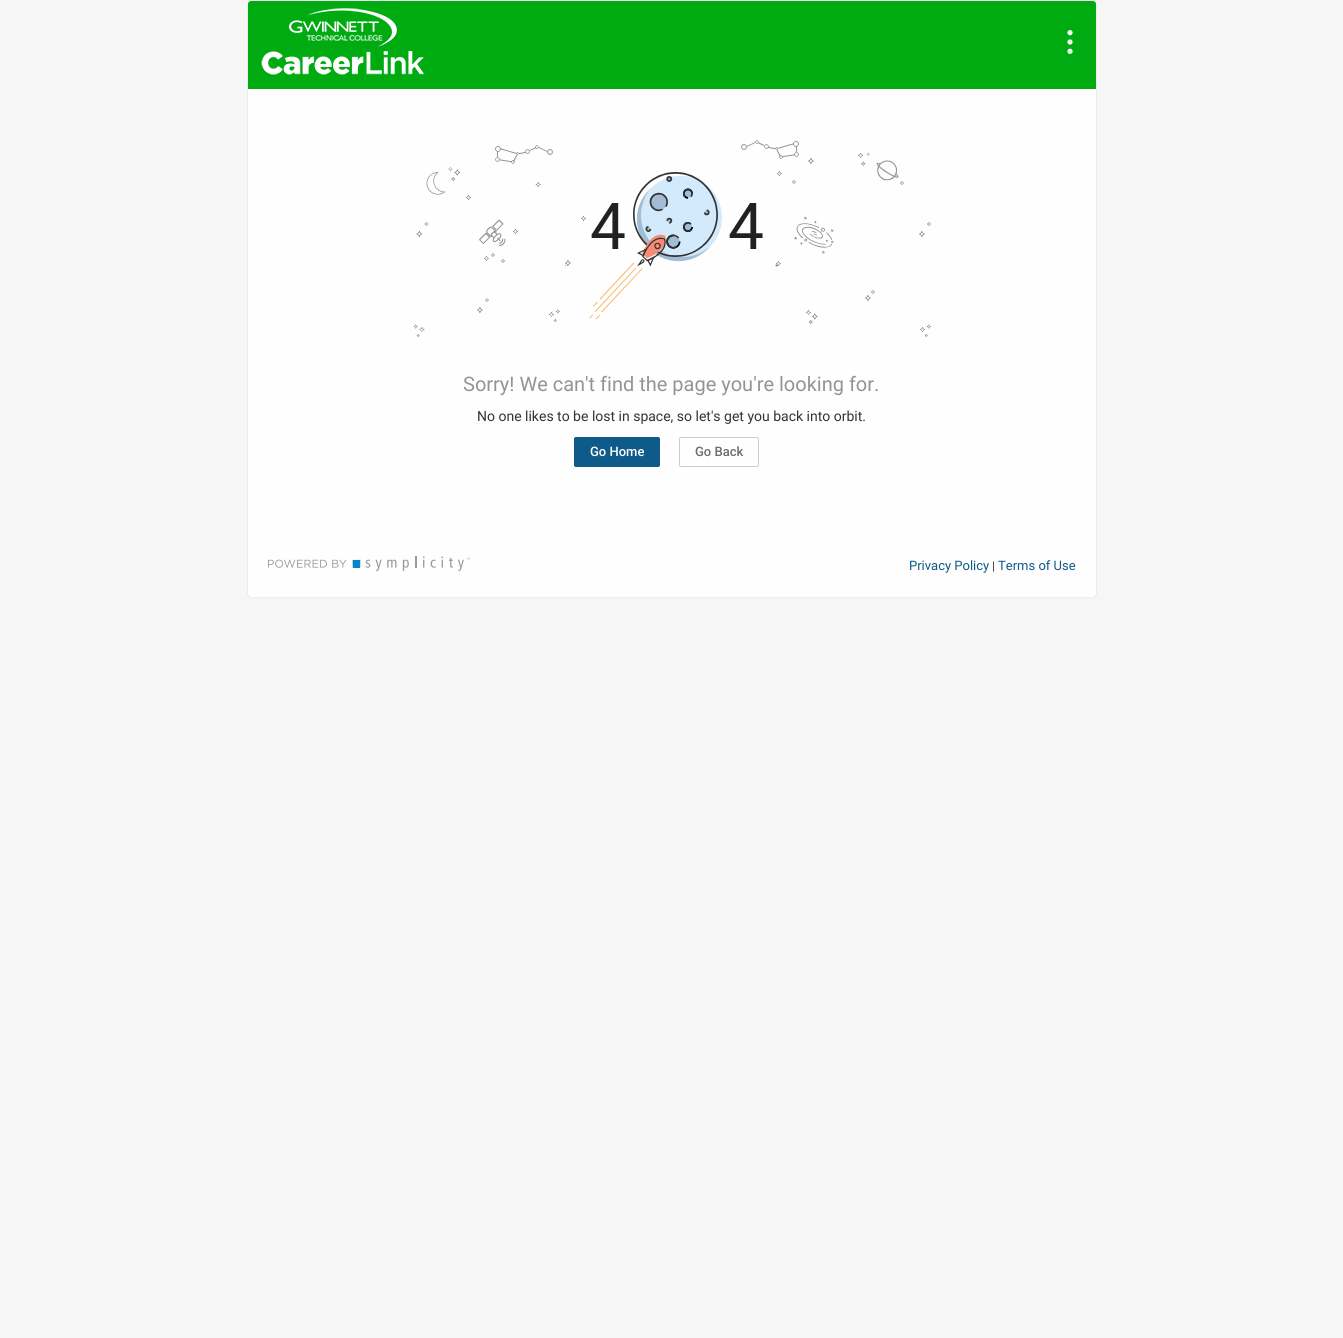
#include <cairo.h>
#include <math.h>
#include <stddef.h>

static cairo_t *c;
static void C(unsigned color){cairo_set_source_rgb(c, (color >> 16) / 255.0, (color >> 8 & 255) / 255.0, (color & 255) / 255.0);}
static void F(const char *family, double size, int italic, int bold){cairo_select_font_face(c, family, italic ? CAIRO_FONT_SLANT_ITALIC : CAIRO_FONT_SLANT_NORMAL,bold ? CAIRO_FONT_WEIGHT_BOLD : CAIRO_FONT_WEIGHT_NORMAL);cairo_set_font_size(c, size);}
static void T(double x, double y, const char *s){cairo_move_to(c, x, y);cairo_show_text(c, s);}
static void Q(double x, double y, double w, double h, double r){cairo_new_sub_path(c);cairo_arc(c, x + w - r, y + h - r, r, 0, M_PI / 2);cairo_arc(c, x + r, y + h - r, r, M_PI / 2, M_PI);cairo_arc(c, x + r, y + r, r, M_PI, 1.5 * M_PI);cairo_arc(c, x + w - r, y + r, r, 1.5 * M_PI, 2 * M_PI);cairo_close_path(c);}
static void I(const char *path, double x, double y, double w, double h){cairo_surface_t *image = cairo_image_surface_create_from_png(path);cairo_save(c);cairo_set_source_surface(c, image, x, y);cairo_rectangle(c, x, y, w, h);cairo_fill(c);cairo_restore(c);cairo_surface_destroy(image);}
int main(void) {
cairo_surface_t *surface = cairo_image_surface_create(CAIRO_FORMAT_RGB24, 1343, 1338);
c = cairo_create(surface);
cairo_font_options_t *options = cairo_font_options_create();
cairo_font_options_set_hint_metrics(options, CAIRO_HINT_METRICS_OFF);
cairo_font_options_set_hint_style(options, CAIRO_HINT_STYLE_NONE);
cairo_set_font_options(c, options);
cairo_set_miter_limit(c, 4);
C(0xf6f6f6);
cairo_paint(c);
C(0xfefefe);
Q(247.5,.5,849,597,4.5);
cairo_fill_preserve(c);
C(0xececec);
cairo_set_line_width(c,1);
cairo_stroke(c);
C(0x00aa11);
cairo_new_path(c);
cairo_move_to(c,251,1);
cairo_line_to(c,1093,1);
cairo_curve_to(c,1094.5,1,1096,2.5,1096,4);
cairo_line_to(c,1096,89);
cairo_line_to(c,248,89);
cairo_line_to(c,248,4);
cairo_curve_to(c,248,2.5,249.5,1,251,1);
cairo_close_path(c);
cairo_fill(c);
I("1.png",261,8,163,67);
I("2.png",1067,30,6,24);
I("3.png",413,140,518,197);
F("Roboto",20,0,0);
C(0x949494);
T(463,391,"Sorry! We can't find the page you're looking for.");
F("Roboto",14,0,0);
C(0x333333);
T(477,421,"No one likes to be lost in space, so let's get you back into orbit.");
C(0x0e5a89);
Q(574.5,437.5,85,29,1.5);
cairo_fill_preserve(c);
cairo_stroke(c);
F("Roboto Medium",13,0,0);
C(0xffffff);
T(590,456,"Go Home");
Q(679.5,437.5,79,29,1.5);
C(0xcccccc);
cairo_stroke(c);
C(0x6c6c6c);
T(695,456,"Go Back");
I("4.png",268,556,202,15);
F("Roboto",13,0,0);
C(0x0e5a89);
T(909,570,"Privacy Policy");
F("Roboto",12,0,0);
C(0x333333);
T(992,570,"|");
F("Roboto",13,0,0);
C(0x0e5a89);
T(998,570,"Terms of Use");
cairo_surface_write_to_png(surface, "o.png");
cairo_font_options_destroy(options);
cairo_destroy(c);
cairo_surface_destroy(surface);
return 0;
}
